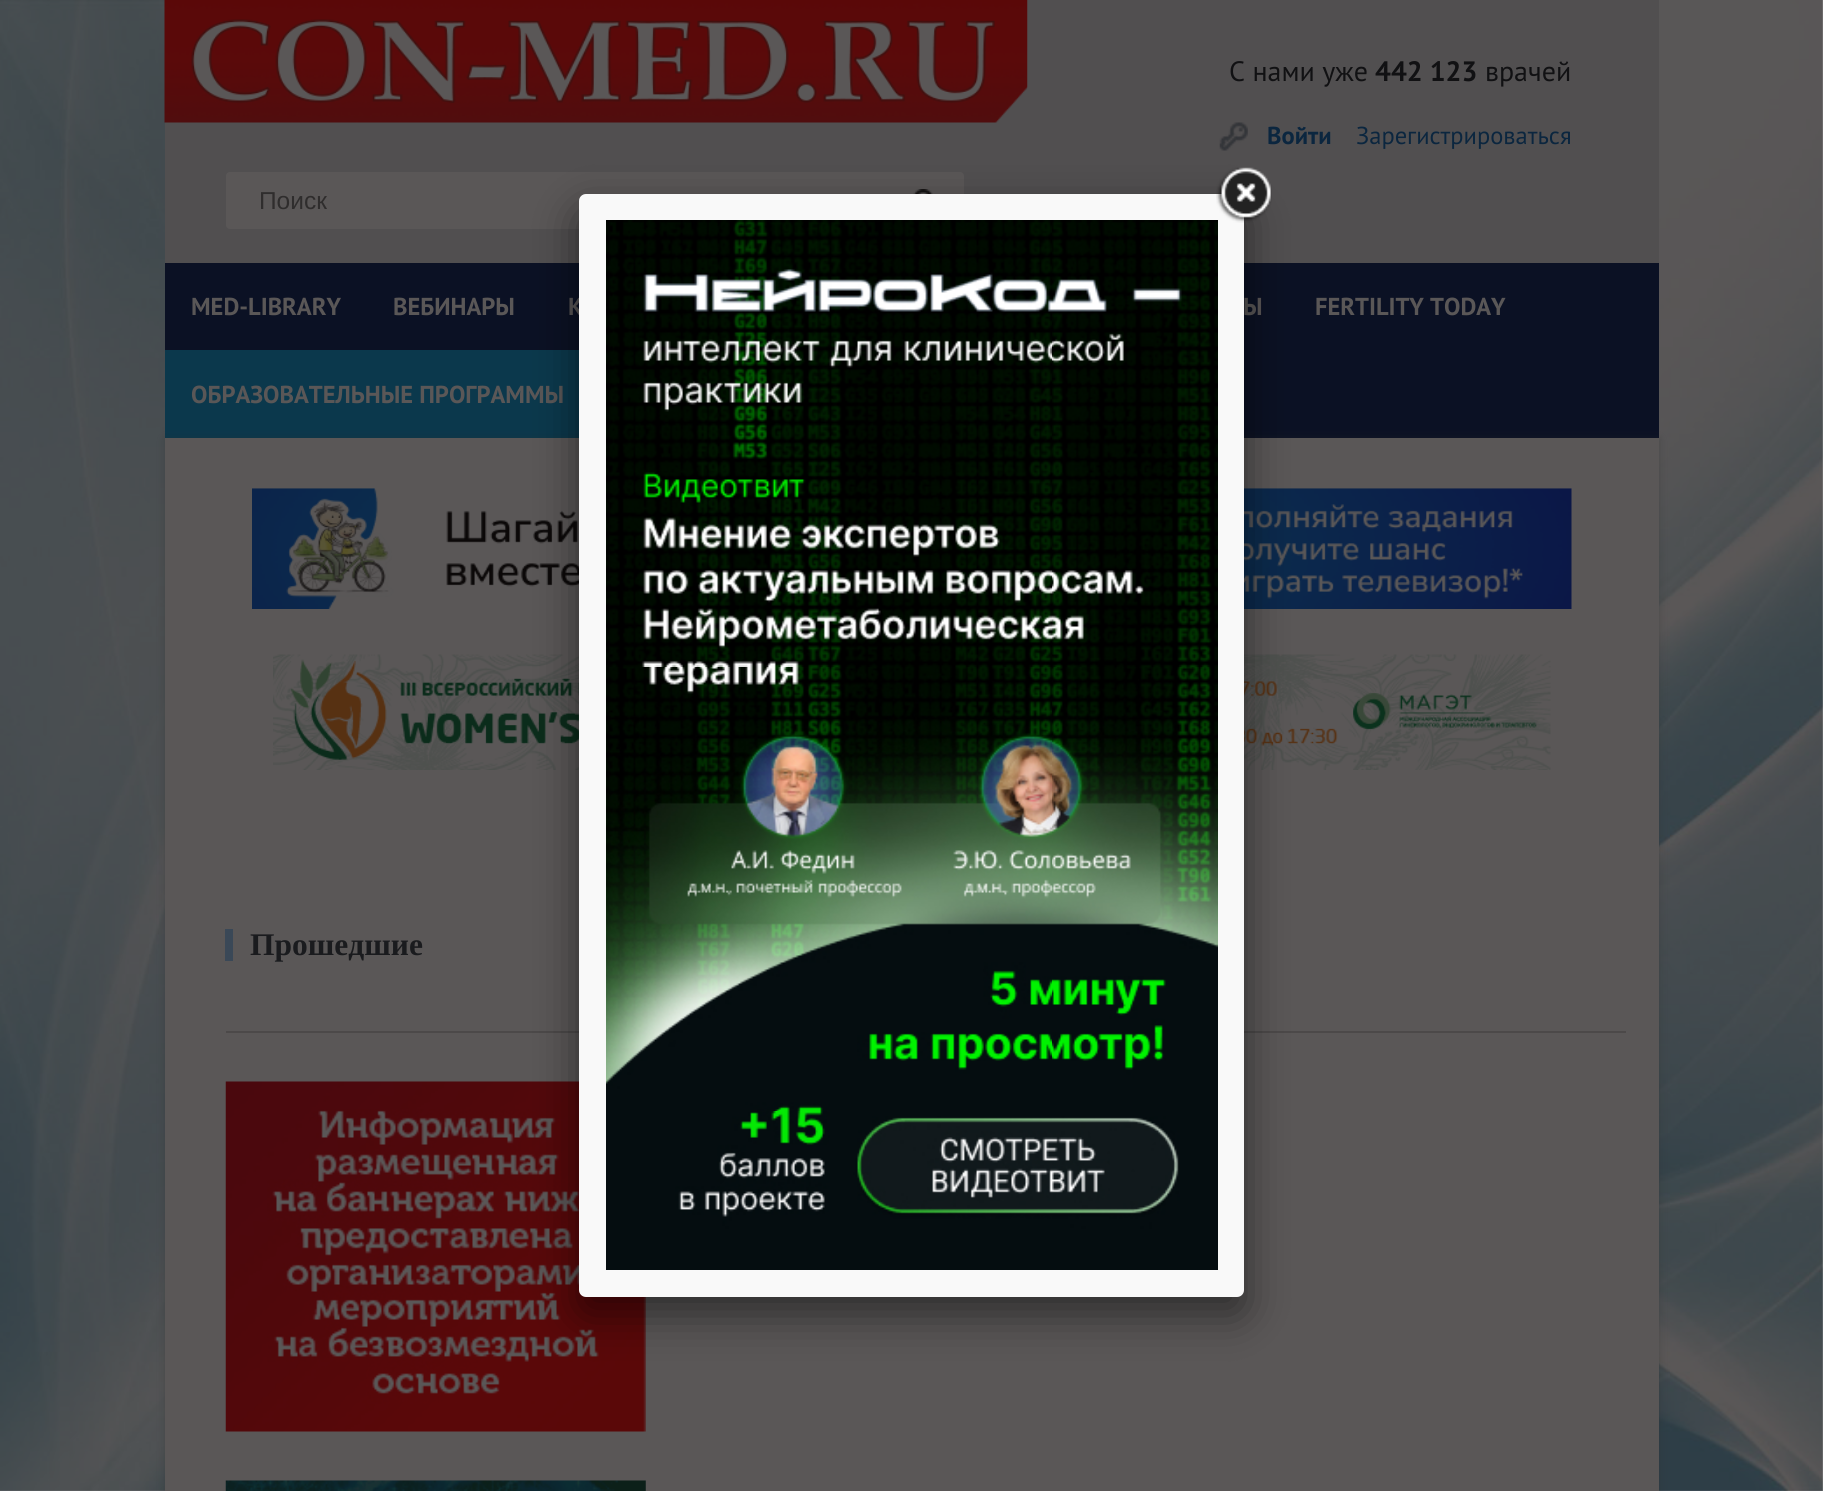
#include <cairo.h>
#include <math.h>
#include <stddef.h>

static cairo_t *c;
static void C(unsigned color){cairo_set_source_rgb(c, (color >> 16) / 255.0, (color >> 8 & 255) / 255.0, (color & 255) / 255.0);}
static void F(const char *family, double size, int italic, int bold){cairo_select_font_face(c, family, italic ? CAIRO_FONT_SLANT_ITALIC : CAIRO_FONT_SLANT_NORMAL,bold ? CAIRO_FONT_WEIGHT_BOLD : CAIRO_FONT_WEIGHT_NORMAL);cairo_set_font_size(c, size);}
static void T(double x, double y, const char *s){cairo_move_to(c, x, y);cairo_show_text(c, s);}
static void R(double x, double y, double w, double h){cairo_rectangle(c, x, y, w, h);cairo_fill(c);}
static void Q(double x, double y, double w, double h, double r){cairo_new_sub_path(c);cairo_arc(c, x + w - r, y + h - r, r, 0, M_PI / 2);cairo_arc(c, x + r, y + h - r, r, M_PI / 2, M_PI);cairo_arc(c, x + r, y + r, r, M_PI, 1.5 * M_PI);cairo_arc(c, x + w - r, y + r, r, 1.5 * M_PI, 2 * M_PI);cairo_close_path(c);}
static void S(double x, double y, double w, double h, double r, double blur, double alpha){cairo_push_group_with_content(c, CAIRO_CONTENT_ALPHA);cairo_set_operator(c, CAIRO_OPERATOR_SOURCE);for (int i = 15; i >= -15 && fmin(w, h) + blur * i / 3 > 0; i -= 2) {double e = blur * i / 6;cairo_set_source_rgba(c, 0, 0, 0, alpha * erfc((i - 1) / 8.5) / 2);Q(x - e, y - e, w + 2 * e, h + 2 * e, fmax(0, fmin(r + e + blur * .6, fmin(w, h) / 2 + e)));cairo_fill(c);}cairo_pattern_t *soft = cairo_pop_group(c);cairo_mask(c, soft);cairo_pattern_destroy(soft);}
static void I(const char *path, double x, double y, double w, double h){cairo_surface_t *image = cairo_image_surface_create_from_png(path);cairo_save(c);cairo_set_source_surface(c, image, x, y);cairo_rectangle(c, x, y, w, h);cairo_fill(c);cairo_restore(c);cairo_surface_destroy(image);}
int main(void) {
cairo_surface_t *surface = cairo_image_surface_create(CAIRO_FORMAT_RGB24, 1823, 1491);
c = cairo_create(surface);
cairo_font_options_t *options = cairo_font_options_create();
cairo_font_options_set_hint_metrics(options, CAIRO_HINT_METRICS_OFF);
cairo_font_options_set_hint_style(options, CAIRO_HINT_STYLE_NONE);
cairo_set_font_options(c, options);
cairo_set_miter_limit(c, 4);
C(0xffffff);
cairo_paint(c);
I("1.png",0,0,1823,1491);
C(0x514f50);
R(165,0,1494,263);
F("PT Sans",28,0,0);
C(0x111113);
T(1229,81,"С нами уже");
F("PT Sans",28,0,1);
T(1375,81,"442 123");
F("PT Sans",28,0,0);
T(1485,81,"врачей");
I("2.png",1219,122,29,29);
F("PT Sans",24.5,0,1);
C(0x0b263f);
T(1267,144,"Войти");
F("PT Sans",24.5,0,0);
T(1356,144,"Зарегистрироваться");
I("3.png",164,0,864,123);
C(0x5a5757);
Q(226,172,738,57,4);
cairo_fill(c);
I("4.png",913,189,20,5);
F("Liberation Sans",24.5,0,0);
C(0x2f2d2d);
T(259,209,"Поиск");
C(0x0b1124);
R(165,263,1494,175);
F("PT Sans",24.5,0,1);
C(0x5a5757);
T(191,315,"MED-LIBRARY");
T(393,315,"ВЕБИНАРЫ");
T(568,315,"К");
T(1243,315,"Ы");
T(1315,315,"FERTILITY TODAY");
C(0x0b384c);
R(165,350,414,88);
C(0x5a5757);
T(191,403,"ОБРАЗОВАТЕЛЬНЫЕ ПРОГРАММЫ");
C(0x2b2a2c);
S(165,439,1494,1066,0,4.5,.31);
C(0x5a5757);
R(165,438,1494,1053);
I("5.png",252,488,1320,121);
I("6.png",273,654,1278,116);
C(0x4c4949);
R(226,1031,1400,2);
C(0x3a4857);
R(225,929,8,32);
F("Liberation Serif",31.5,0,1);
C(0x1a1b1e);
T(250,955,"Прошедшие");
I("7.png",225,1081,421,351);
I("8.png",225,1480,421,11);
C(0x000000);
S(579,212,665,1102,7,22,.5);
C(0xf9f9f9);
Q(579,194,665,1103,7);
cairo_fill(c);
I("10.png",606,220,612,1050);
I("9.png",1216,167,56,56);
cairo_surface_write_to_png(surface, "o.png");
cairo_font_options_destroy(options);
cairo_destroy(c);
cairo_surface_destroy(surface);
return 0;
}
